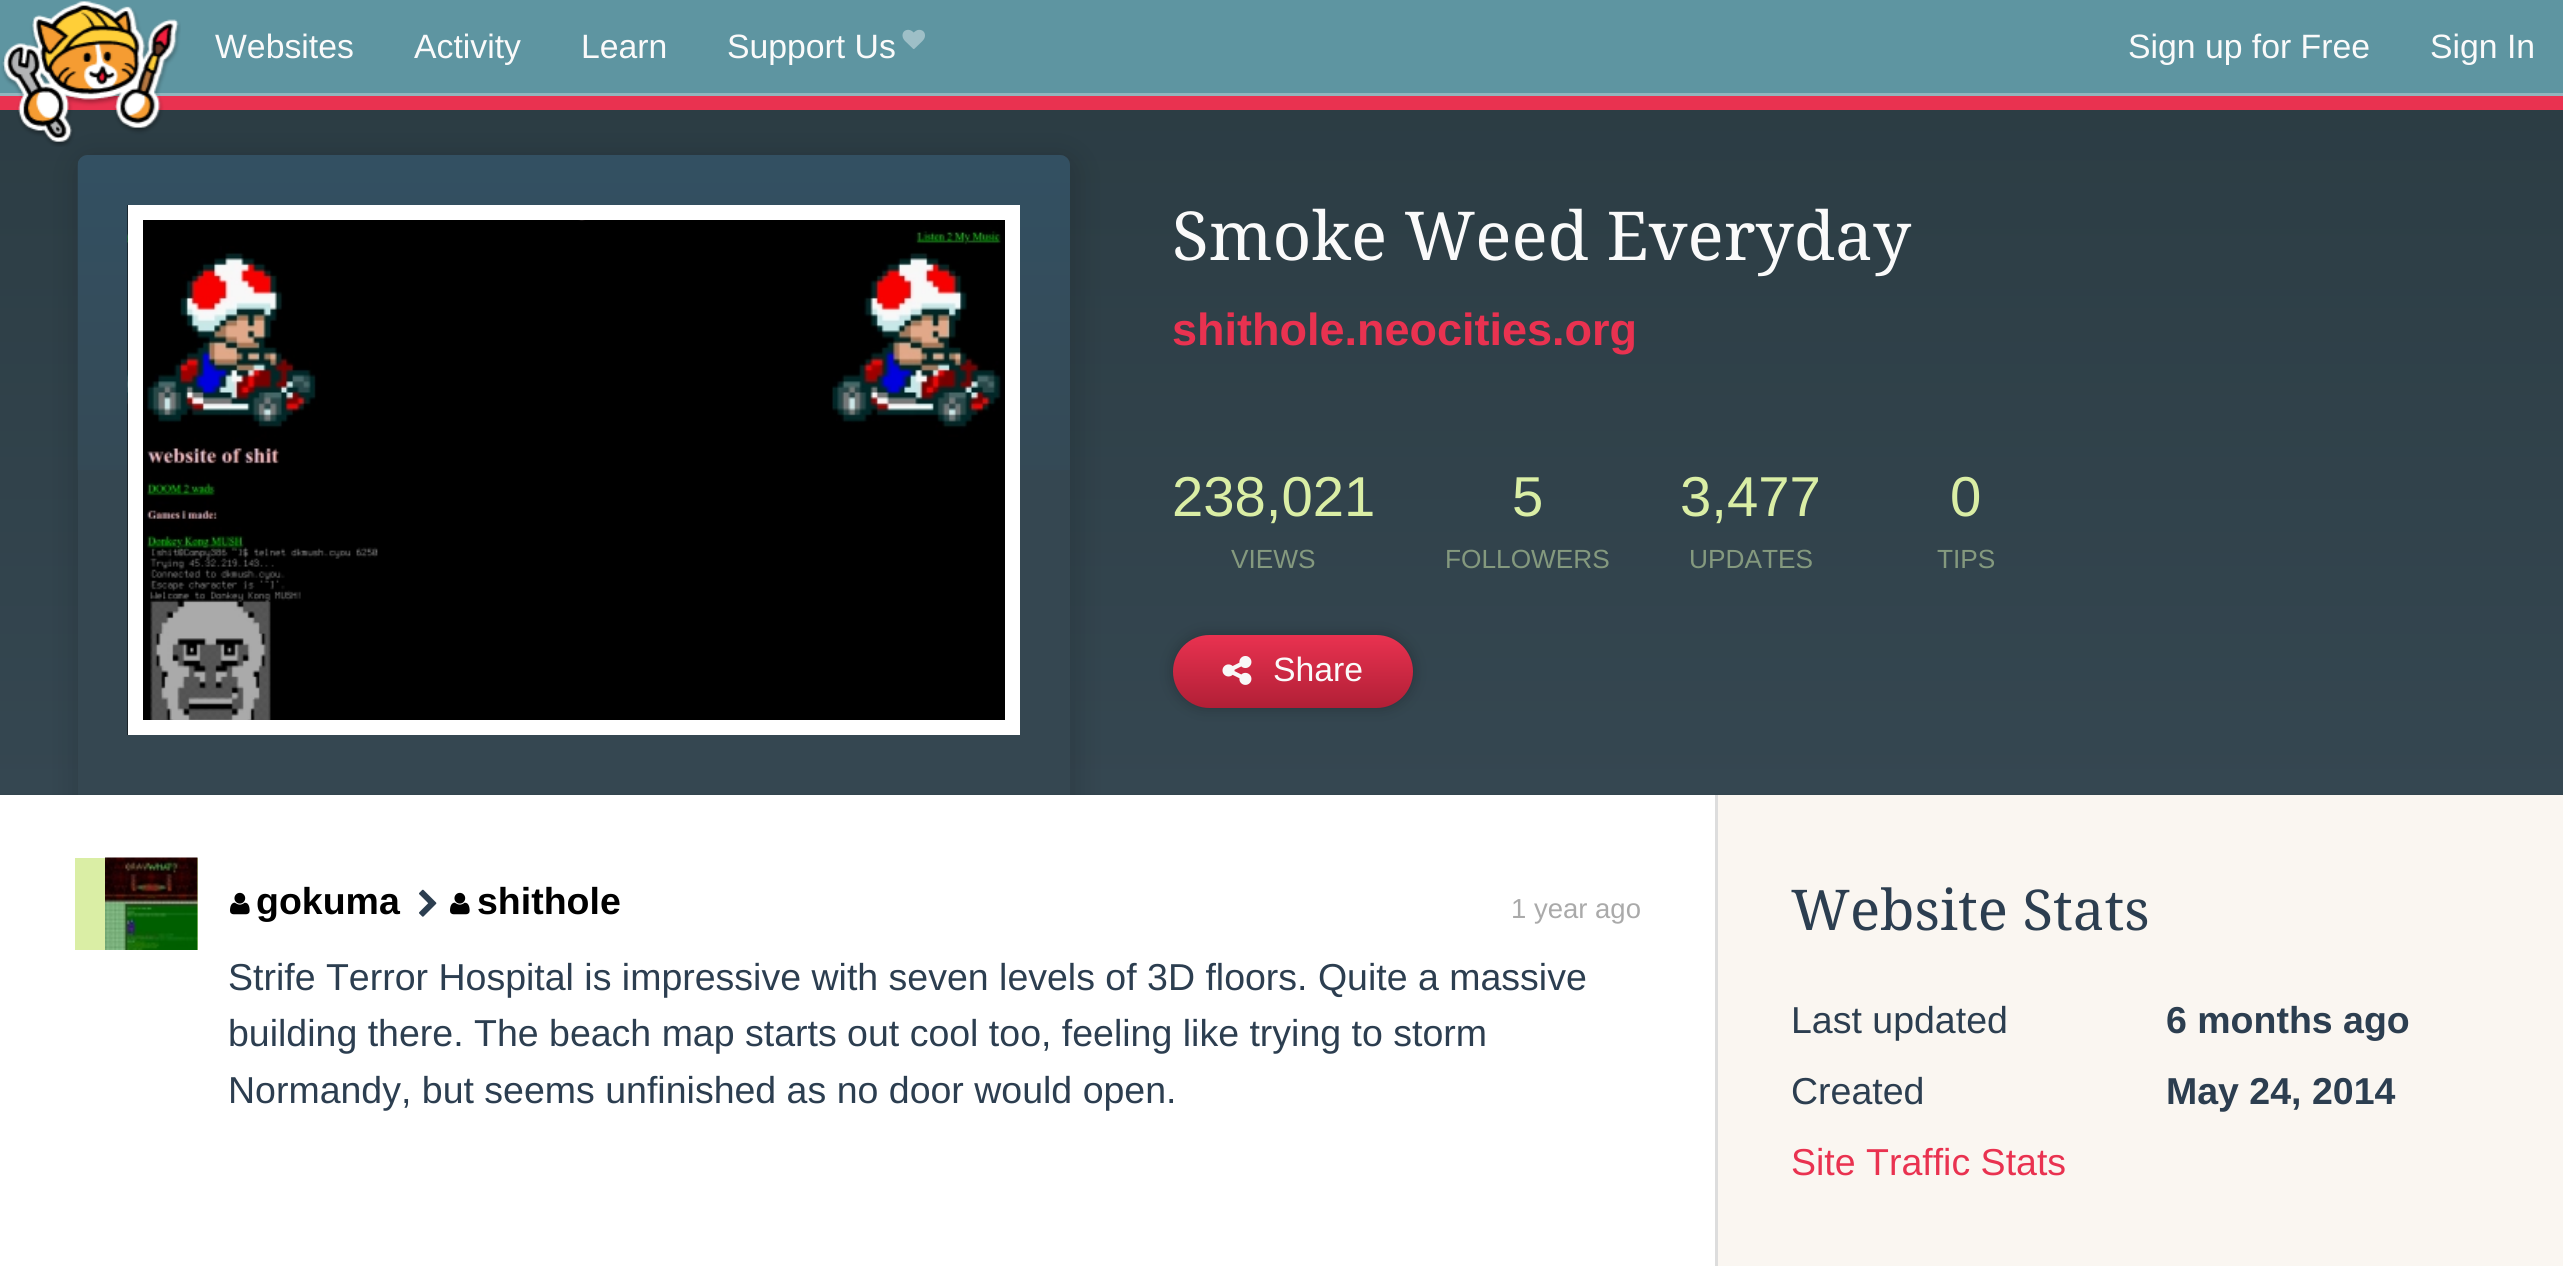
#include <cairo.h>
#include <math.h>
#include <stddef.h>

static cairo_t *c;
static void C(unsigned color){cairo_set_source_rgb(c, (color >> 16) / 255.0, (color >> 8 & 255) / 255.0, (color & 255) / 255.0);}
static void F(const char *family, double size, int italic, int bold){cairo_select_font_face(c, family, italic ? CAIRO_FONT_SLANT_ITALIC : CAIRO_FONT_SLANT_NORMAL,bold ? CAIRO_FONT_WEIGHT_BOLD : CAIRO_FONT_WEIGHT_NORMAL);cairo_set_font_size(c, size);}
static void T(double x, double y, const char *s){cairo_move_to(c, x, y);cairo_show_text(c, s);}
static void R(double x, double y, double w, double h){cairo_rectangle(c, x, y, w, h);cairo_fill(c);}
static void Q(double x, double y, double w, double h, double r){cairo_new_sub_path(c);cairo_arc(c, x + w - r, y + h - r, r, 0, M_PI / 2);cairo_arc(c, x + r, y + h - r, r, M_PI / 2, M_PI);cairo_arc(c, x + r, y + r, r, M_PI, 1.5 * M_PI);cairo_arc(c, x + w - r, y + r, r, 1.5 * M_PI, 2 * M_PI);cairo_close_path(c);}
static void S(double x, double y, double w, double h, double r, double blur, double alpha){cairo_push_group_with_content(c, CAIRO_CONTENT_ALPHA);cairo_set_operator(c, CAIRO_OPERATOR_SOURCE);for (int i = 15; i >= -15 && fmin(w, h) + blur * i / 3 > 0; i -= 2) {double e = blur * i / 6;cairo_set_source_rgba(c, 0, 0, 0, alpha * erfc((i - 1) / 8.5) / 2);Q(x - e, y - e, w + 2 * e, h + 2 * e, fmax(0, fmin(r + e + blur * .6, fmin(w, h) / 2 + e)));cairo_fill(c);}cairo_pattern_t *soft = cairo_pop_group(c);cairo_mask(c, soft);cairo_pattern_destroy(soft);}
static void I(const char *path, double x, double y, double w, double h){cairo_surface_t *image = cairo_image_surface_create_from_png(path);cairo_save(c);cairo_set_source_surface(c, image, x, y);cairo_rectangle(c, x, y, w, h);cairo_fill(c);cairo_restore(c);cairo_surface_destroy(image);}
int main(void) {
cairo_surface_t *surface = cairo_image_surface_create(CAIRO_FORMAT_RGB24, 2563, 1266);
c = cairo_create(surface);
cairo_font_options_t *options = cairo_font_options_create();
cairo_font_options_set_hint_metrics(options, CAIRO_HINT_METRICS_OFF);
cairo_font_options_set_hint_style(options, CAIRO_HINT_STYLE_NONE);
cairo_set_font_options(c, options);
cairo_set_miter_limit(c, 4);
cairo_pattern_t *gradient;
C(0xffffff);
cairo_paint(c);
gradient = cairo_pattern_create_linear(1283,55,1283,795);
cairo_pattern_add_color_stop_rgba(gradient,0,0.169,0.235,0.263,1);
cairo_pattern_add_color_stop_rgba(gradient,1,0.208,0.278,0.318,1);
cairo_set_source(c,gradient);
cairo_pattern_destroy(gradient);
R(0,110,2563,685);
C(0x000000);
S(75,155,1003,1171,15,15,.15);
C(0xe93250);
R(0,96,2563,14);
C(0x5e95a1);
R(0,0,2563,93);
C(0x92b4bd);
R(0,93,2563,3);
I("1.png",1,1,180,146);
F("Liberation Sans",33.75,0,0);
C(0xfafafa);
T(215,58,"Websites");
T(414,58,"Activity");
T(581,58,"Learn");
T(727,58,"Support Us");
I("2.png",902,29,23,20);
T(2128,58,"Sign up for Free");
T(2430,58,"Sign In");
C(0x354751);
cairo_new_path(c);
cairo_move_to(c,88,155);
cairo_line_to(c,1060,155);
cairo_curve_to(c,1065.5,155,1070,159.5,1070,165);
cairo_line_to(c,1070,795);
cairo_line_to(c,78,795);
cairo_line_to(c,78,165);
cairo_curve_to(c,78,159.5,82.5,155,88,155);
cairo_close_path(c);
cairo_fill(c);
I("3.png",77,155,993,315);
I("4.png",127,205,878,530);
cairo_rectangle(c,135.5,212.5,877,515);
C(0xffffff);
cairo_set_line_width(c,15);
cairo_stroke(c);
F("Droid Serif",67.5,0,0);
C(0xfafafa);
T(1172,260,"Smoke Weed Everyday");
F("Liberation Sans",45,0,1);
C(0xe93250);
T(1172,345,"shithole.neocities.org");
F("Liberation Sans",56.25,0,0);
C(0xdaeea5);
T(1172,516,"238,021");
F("Liberation Sans",26.25,0,0);
C(0x84997e);
T(1231,568,"VIEWS");
F("Liberation Sans",56.25,0,0);
C(0xdaeea5);
T(1512,516,"5");
F("Liberation Sans",26.25,0,0);
C(0x84997e);
T(1445,568,"FOLLOWERS");
F("Liberation Sans",56.25,0,0);
C(0xdaeea5);
T(1680,516,"3,477");
F("Liberation Sans",26.25,0,0);
C(0x84997e);
T(1689,568,"UPDATES");
F("Liberation Sans",56.25,0,0);
C(0xdaeea5);
T(1950,516,"0");
F("Liberation Sans",26.25,0,0);
C(0x84997e);
T(1937,568,"TIPS");
C(0x000000);
S(1173,635,240,73,36.5,7.5,.25);
gradient = cairo_pattern_create_linear(1293,635,1293,708);
cairo_pattern_add_color_stop_rgba(gradient,0,0.914,0.196,0.314,1);
cairo_pattern_add_color_stop_rgba(gradient,1,0.694,0.122,0.212,1);
cairo_set_source(c,gradient);
cairo_pattern_destroy(gradient);
Q(1173,635,240,73,36.5);
cairo_fill(c);
I("5.png",1222,656,30,29);
F("Liberation Sans",33.75,0,0);
C(0xfafafa);
T(1273,681,"Share");
C(0x000000);
S(-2,795,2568,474,0,1,.1);
C(0xfaf6f1);
R(1718,795,845,471);
C(0xdddddd);
R(1715,795,3,471);
C(0xffffff);
R(0,795,1715,471);
C(0xdaeea5);
R(75,858,123,92);
I("6.png",105,857,93,93);
I("7.png",230,892,20,23);
F("Liberation Sans",37.5,0,1);
C(0x000000);
T(256,914,"gokuma");
I("8.png",419,889,18,28);
I("7.png",450,892,20,23);
T(477,914,"shithole");
F("Liberation Sans",27.5,0,0);
C(0xaaaaaa);
T(1511,918,"1 year ago");
F("Liberation Sans",37.5,0,0);
C(0x2c3e50);
T(228,990,"Strife Terror Hospital is impressive with seven levels of 3D floors. Quite a massive");
T(228,1046,"building there. The beach map starts out cool too, feeling like trying to storm");
T(228,1103,"Normandy, but seems unfinished as no door would open.");
F("Droid Serif",56.25,0,0);
T(1791,930,"Website Stats");
F("Liberation Sans",37.5,0,0);
T(1791,1033,"Last updated");
F("Liberation Sans",37.5,0,1);
T(2166,1033,"6 months ago");
F("Liberation Sans",37.5,0,0);
T(1791,1104,"Created");
F("Liberation Sans",37.5,0,1);
T(2166,1104,"May 24, 2014");
F("Liberation Sans",37.5,0,0);
C(0xe93250);
T(1791,1175,"Site Traffic Stats");
cairo_surface_write_to_png(surface, "o.png");
cairo_font_options_destroy(options);
cairo_destroy(c);
cairo_surface_destroy(surface);
return 0;
}
